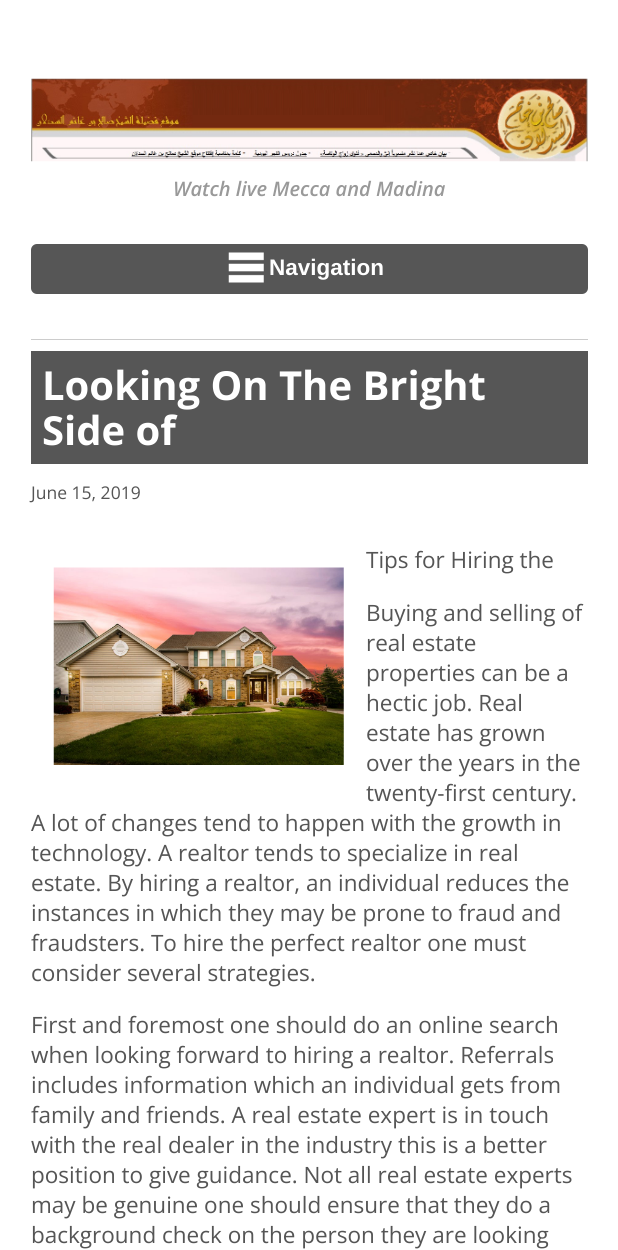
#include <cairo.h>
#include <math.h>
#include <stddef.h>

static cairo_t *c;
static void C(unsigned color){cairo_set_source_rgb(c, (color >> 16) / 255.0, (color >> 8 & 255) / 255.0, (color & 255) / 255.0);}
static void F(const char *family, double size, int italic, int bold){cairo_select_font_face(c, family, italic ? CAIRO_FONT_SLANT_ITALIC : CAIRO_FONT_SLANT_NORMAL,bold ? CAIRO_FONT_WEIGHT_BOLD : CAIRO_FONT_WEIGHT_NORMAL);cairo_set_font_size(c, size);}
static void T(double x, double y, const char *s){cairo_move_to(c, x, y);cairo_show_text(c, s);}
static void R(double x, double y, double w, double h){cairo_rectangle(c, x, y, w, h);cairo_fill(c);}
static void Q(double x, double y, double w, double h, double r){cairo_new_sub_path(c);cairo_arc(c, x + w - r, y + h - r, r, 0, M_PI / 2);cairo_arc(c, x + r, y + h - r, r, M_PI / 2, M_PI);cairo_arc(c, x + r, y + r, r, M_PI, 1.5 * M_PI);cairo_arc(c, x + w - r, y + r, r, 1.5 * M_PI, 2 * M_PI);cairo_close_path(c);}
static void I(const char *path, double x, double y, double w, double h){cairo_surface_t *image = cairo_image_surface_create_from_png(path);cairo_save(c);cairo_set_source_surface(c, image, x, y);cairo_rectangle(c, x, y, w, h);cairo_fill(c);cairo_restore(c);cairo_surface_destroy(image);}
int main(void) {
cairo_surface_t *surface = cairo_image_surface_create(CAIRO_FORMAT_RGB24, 618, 1250);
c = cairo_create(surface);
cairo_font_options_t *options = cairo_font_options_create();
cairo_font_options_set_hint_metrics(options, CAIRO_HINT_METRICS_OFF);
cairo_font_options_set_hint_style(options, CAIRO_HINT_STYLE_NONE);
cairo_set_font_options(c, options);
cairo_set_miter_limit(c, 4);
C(0xffffff);
cairo_paint(c);
I("1.png",31,78,557,84);
F("Open Sans SemiBold",20,1,0);
C(0x999999);
T(173,196,"Watch live Mecca and Madina");
C(0x565656);
Q(31,244,557,50,6);
cairo_fill(c);
I("2.png",228,252,36,31);
F("Liberation Sans",22.5,0,1);
C(0xffffff);
T(269,275,"Navigation");
C(0xcccccc);
R(31,339,557,1);
C(0x565656);
R(31,351,557,113);
F("Open Sans",40,0,1);
C(0xffffff);
T(42,400,"Looking On The Bright");
T(42,445,"Side of");
F("Open Sans",17.5,0,0);
C(0x555555);
T(31,499,"June 15, 2019");
F("Open Sans",22.5,0,0);
T(366,568,"Tips for Hiring the");
I("3.png",53,567,291,198);
T(366,621,"Buying and selling of");
T(366,651,"real estate");
T(366,681,"properties can be a");
T(366,711,"hectic job. Real");
T(366,741,"estate has grown");
T(366,771,"over the years in the");
T(366,801,"twenty-first century.");
T(31,831,"A lot of changes tend to happen with the growth in");
T(31,861,"technology. A realtor tends to specialize in real");
T(31,891,"estate. By hiring a realtor, an individual reduces the");
T(31,921,"instances in which they may be prone to fraud and");
T(31,951,"fraudsters. To hire the perfect realtor one must");
T(31,981,"consider several strategies.");
T(31,1033,"First and foremost one should do an online search");
T(31,1063,"when looking forward to hiring a realtor. Referrals");
T(31,1093,"includes information which an individual gets from");
T(31,1123,"family and friends. A real estate expert is in touch");
T(31,1153,"with the real dealer in the industry this is a better");
T(31,1183,"position to give guidance. Not all real estate experts");
T(31,1213,"may be genuine one should ensure that they do a");
T(31,1243,"background check on the person they are looking");
cairo_surface_write_to_png(surface, "o.png");
cairo_font_options_destroy(options);
cairo_destroy(c);
cairo_surface_destroy(surface);
return 0;
}
